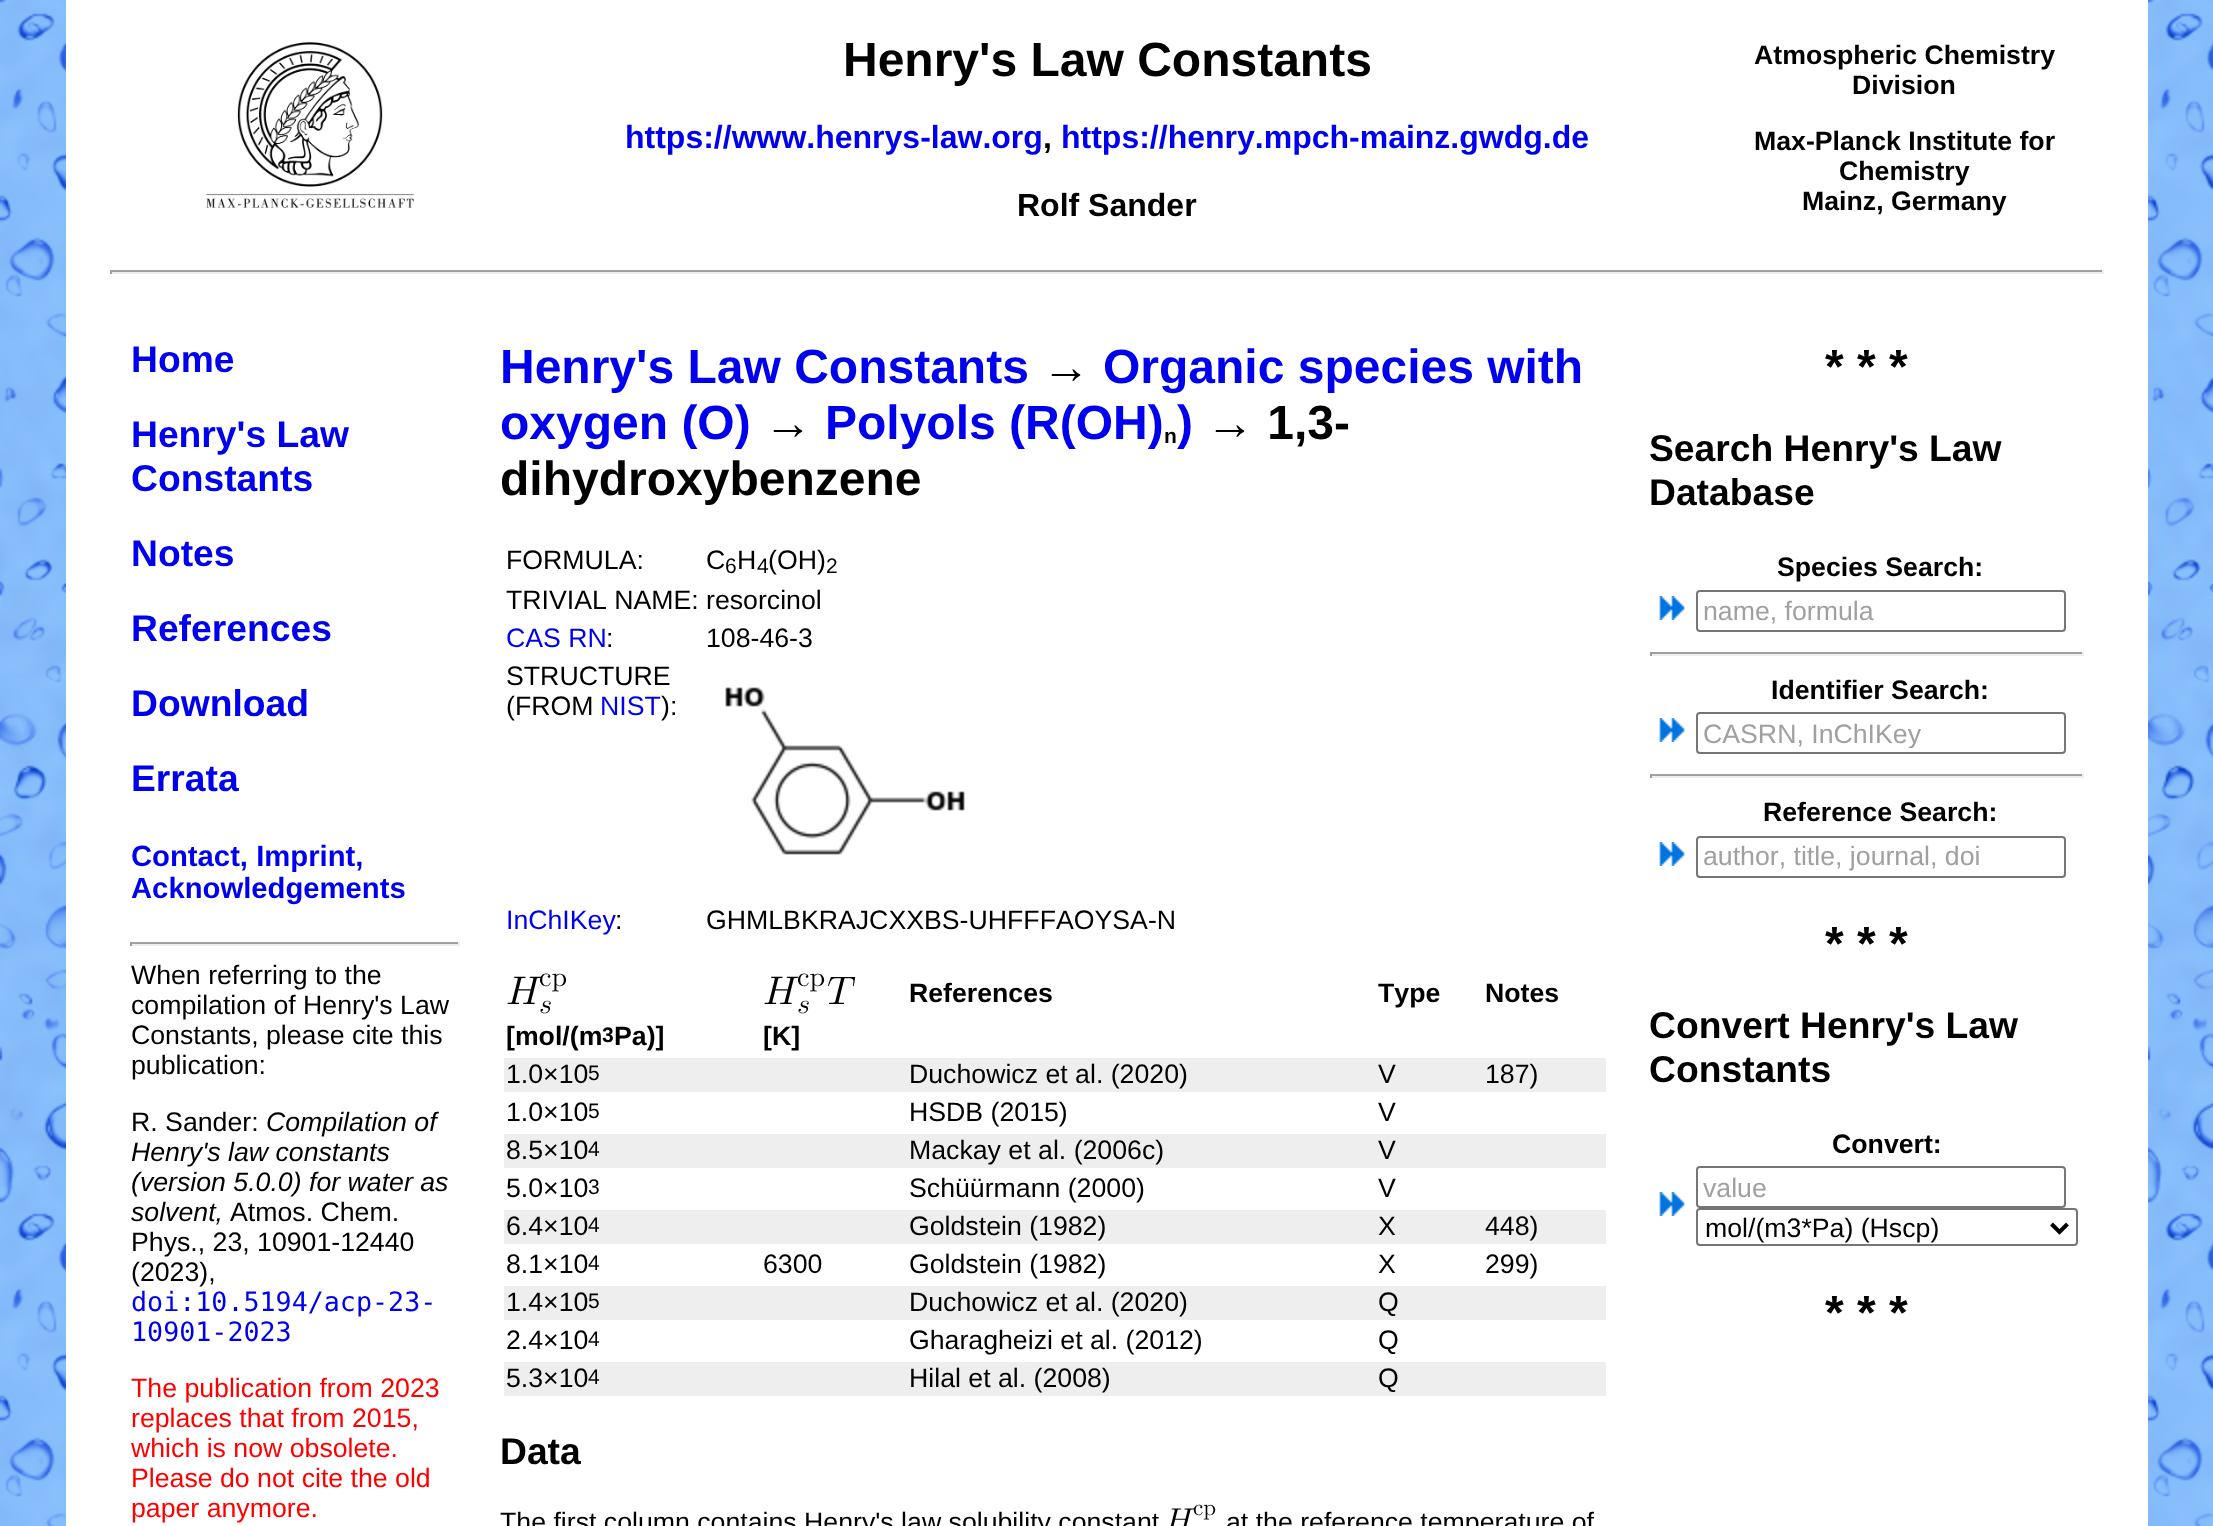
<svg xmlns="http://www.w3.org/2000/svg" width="2213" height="1526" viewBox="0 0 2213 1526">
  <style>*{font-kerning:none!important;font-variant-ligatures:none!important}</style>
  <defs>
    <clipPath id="clip1"><path d="M1704 718h354v30H1704z"/></clipPath>
  </defs>
  <rect width="100%" height="100%" fill="#fff"/>
  <image x="0" y="0" width="66" height="1526" href="img/1.png"/>
  <image x="206" y="42" width="208" height="166" href="img/2.png"/>
  <path d="M110 270h1994v2H110z" fill="#9f9f9f"/>
  <path d="M2102 270h2v4H2102z" fill="#eee"/>
  <path d="M110 272h1994v2H110z" fill="#eee"/>
  <path d="M110 270h2v4H110z" fill="#9f9f9f"/>
  <path d="M130 942h330v2H130z" fill="#9f9f9f"/>
  <path d="M458 942h2v4H458z" fill="#eee"/>
  <path d="M130 944h330v2H130z" fill="#eee"/>
  <path d="M130 942h2v4H130z" fill="#9f9f9f"/>
  <image x="725" y="687" width="240" height="168" href="img/3.png"/>
  <path d="M504 1058h1102v34H504z" fill="#eee"/>
  <path d="M504 1134h1102v34H504z" fill="#eee"/>
  <path d="M504 1210h1102v34H504z" fill="#eee"/>
  <path d="M504 1286h1102v34H504z" fill="#eee"/>
  <path d="M504 1362h1102v34H504z" fill="#eee"/>
  <image x="1659" y="596" width="26" height="24" href="img/4.png"/>
  <rect x="1697" y="591" width="368" height="40" rx="3" fill="none" stroke="#767676" stroke-width="2"/>
  <path d="M1650 652h434v2H1650z" fill="#9f9f9f"/>
  <path d="M2082 652h2v4H2082z" fill="#eee"/>
  <path d="M1650 654h434v2H1650z" fill="#eee"/>
  <path d="M1650 652h2v4H1650z" fill="#9f9f9f"/>
  <image x="1659" y="718" width="26" height="24" href="img/4.png"/>
  <rect x="1697" y="713" width="368" height="40" rx="3" fill="none" stroke="#767676" stroke-width="2"/>
  <path d="M1650 774h434v2H1650z" fill="#9f9f9f"/>
  <path d="M2082 774h2v4H2082z" fill="#eee"/>
  <path d="M1650 776h434v2H1650z" fill="#eee"/>
  <path d="M1650 774h2v4H1650z" fill="#9f9f9f"/>
  <image x="1659" y="842" width="26" height="24" href="img/4.png"/>
  <rect x="1697" y="837" width="368" height="40" rx="3" fill="none" stroke="#767676" stroke-width="2"/>
  <image x="1659" y="1192" width="26" height="24" href="img/4.png"/>
  <rect x="1697" y="1167" width="368" height="40" rx="3" fill="none" stroke="#767676" stroke-width="2"/>
  <rect x="1697" y="1209" width="380" height="36" rx="3" fill="none" stroke="#767676" stroke-width="2"/>
  <path d="M2051.5 1224L2059.5 1232L2067.5 1224" fill="none" stroke="#000" stroke-width="4"/>
  <image x="2148" y="0" width="65" height="1526" href="img/5.png"/>
  <text x="843" y="76" font-family="Liberation Sans" font-size="48" font-weight="bold" fill="#000">Henry's Law Constants</text>
  <text x="625" y="148" font-family="Liberation Sans" font-size="32" font-weight="bold" fill="#00e">https://www.henrys-law.org</text>
  <text x="1043" y="148" font-family="Liberation Sans" font-size="32" font-weight="bold" fill="#000">,</text>
  <text x="1061" y="148" font-family="Liberation Sans" font-size="32" font-weight="bold" fill="#00e">https://henry.mpch-mainz.gwdg.de</text>
  <text x="1017" y="216" font-family="Liberation Sans" font-size="32" font-weight="bold" fill="#000">Rolf Sander</text>
  <g font-family="Liberation Sans" font-size="26.7" font-weight="bold" fill="#000">
    <text x="1754" y="64">Atmospheric Chemistry</text>
    <text x="1852" y="94">Division</text>
    <text x="1754" y="150">Max-Planck Institute for</text>
    <text x="1839" y="180">Chemistry</text>
    <text x="1802" y="210">Mainz, Germany</text>
  </g>
  <g font-family="Liberation Sans" font-size="37.25" font-weight="bold" fill="#00e">
    <text x="131" y="372">Home</text>
    <text x="131" y="447">Henry's Law</text>
    <text x="131" y="491">Constants</text>
    <text x="131" y="566">Notes</text>
    <text x="131" y="641">References</text>
    <text x="131" y="716">Download</text>
    <text x="131" y="791">Errata</text>
  </g>
  <g font-family="Liberation Sans" font-size="29.25" font-weight="bold" fill="#00e">
    <text x="131" y="866">Contact, Imprint,</text>
    <text x="131" y="898">Acknowledgements</text>
  </g>
  <g font-family="Liberation Sans" font-size="26.7" fill="#000">
    <text x="131" y="984">When referring to the</text>
    <text x="131" y="1014">compilation of Henry's Law</text>
    <text x="131" y="1044">Constants, please cite this</text>
    <text x="131" y="1074">publication:</text>
    <text x="131" y="1131">R. Sander:</text>
  </g>
  <g font-family="Liberation Sans" font-size="26.7" font-style="italic" fill="#000">
    <text x="266" y="1131">Compilation of</text>
    <text x="131" y="1161">Henry's law constants</text>
    <text x="131" y="1191">(version 5.0.0) for water as</text>
    <text x="131" y="1221">solvent,</text>
  </g>
  <g font-family="Liberation Sans" font-size="26.7" fill="#000">
    <text x="230" y="1221">Atmos. Chem.</text>
    <text x="131" y="1251">Phys., 23, 10901-12440</text>
    <text x="131" y="1281">(2023),</text>
  </g>
  <g font-family="DejaVu Sans Mono" font-size="26.7" fill="#00e">
    <text x="131" y="1311">doi:10.5194/acp-23-</text>
    <text x="131" y="1341">10901-2023</text>
  </g>
  <g font-family="Liberation Sans" font-size="26.7" fill="#f00">
    <text x="131" y="1397">The publication from 2023</text>
    <text x="131" y="1427">replaces that from 2015,</text>
    <text x="131" y="1457">which is now obsolete.</text>
    <text x="131" y="1487">Please do not cite the old</text>
    <text x="131" y="1517">paper anymore.</text>
  </g>
  <text x="500" y="383" font-family="Liberation Sans" font-size="48" font-weight="bold" fill="#00e">Henry's Law Constants</text>
  <text x="1042" y="383" font-family="Liberation Sans" font-size="48" font-weight="bold" fill="#000">→</text>
  <g font-family="Liberation Sans" font-size="48" font-weight="bold" fill="#00e">
    <text x="1103" y="383">Organic species with</text>
    <text x="500" y="439">oxygen (O)</text>
  </g>
  <text x="764" y="439" font-family="Liberation Sans" font-size="48" font-weight="bold" fill="#000">→</text>
  <text x="825" y="439" font-family="Liberation Sans" font-size="48" font-weight="bold" fill="#00e">Polyols (R(OH) )</text>
  <text x="1206" y="439" font-family="Liberation Sans" font-size="48" font-weight="bold" fill="#000">→ 1,3-</text>
  <text x="1164" y="443" font-family="Liberation Sans" font-size="21" font-weight="bold" fill="#000">n</text>
  <text x="500" y="495" font-family="Liberation Sans" font-size="48" font-weight="bold" fill="#000">dihydroxybenzene</text>
  <g font-family="Liberation Sans" font-size="26.7" fill="#000">
    <text x="506" y="569">FORMULA:</text>
    <text x="706" y="569">C</text>
  </g>
  <text x="725" y="573" font-family="Liberation Sans" font-size="21" fill="#000">6</text>
  <text x="737" y="569" font-family="Liberation Sans" font-size="26.7" fill="#000">H</text>
  <text x="757" y="573" font-family="Liberation Sans" font-size="21" fill="#000">4</text>
  <text x="768" y="569" font-family="Liberation Sans" font-size="26.7" fill="#000">(OH)</text>
  <text x="826" y="573" font-family="Liberation Sans" font-size="21" fill="#000">2</text>
  <g font-family="Liberation Sans" font-size="26.7" fill="#000">
    <text x="506" y="609">TRIVIAL NAME:</text>
    <text x="706" y="609">resorcinol</text>
  </g>
  <text x="506" y="647" font-family="Liberation Sans" font-size="26.7" fill="#00e">CAS RN</text>
  <g font-family="Liberation Sans" font-size="26.7" fill="#000">
    <text x="606" y="647">:</text>
    <text x="706" y="647">108-46-3</text>
    <text x="506" y="685">STRUCTURE</text>
    <text x="506" y="715">(FROM</text>
  </g>
  <text x="600" y="715" font-family="Liberation Sans" font-size="26.7" fill="#00e">NIST</text>
  <text x="661" y="715" font-family="Liberation Sans" font-size="26.7" fill="#000">):</text>
  <text x="506" y="929" font-family="Liberation Sans" font-size="26.7" fill="#00e">InChIKey</text>
  <g font-family="Liberation Sans" font-size="26.7" fill="#000">
    <text x="615" y="929">:</text>
    <text x="706" y="929">GHMLBKRAJCXXBS-UHFFFAOYSA-N</text>
  </g>
  <text x="506" y="1004" font-family="Latin Modern Math" font-size="40" fill="#000">𝐻</text>
  <g font-family="Latin Modern Math" font-size="28" fill="#000">
    <text x="539" y="986">cp</text>
    <text x="539" y="1013">𝑠</text>
  </g>
  <text x="763" y="1004" font-family="Latin Modern Math" font-size="40" fill="#000">𝐻</text>
  <g font-family="Latin Modern Math" font-size="28" fill="#000">
    <text x="797" y="986">cp</text>
    <text x="797" y="1013">𝑠</text>
  </g>
  <text x="827" y="1004" font-family="Latin Modern Math" font-size="40" fill="#000">𝑇</text>
  <g font-family="Liberation Sans" font-size="26.7" font-weight="bold" fill="#000">
    <text x="909" y="1002">References</text>
    <text x="1378" y="1002">Type</text>
    <text x="1485" y="1002">Notes</text>
    <text x="506" y="1045">[mol/(m</text>
  </g>
  <text x="602" y="1042" font-family="Liberation Sans" font-size="21" font-weight="bold" fill="#000">3</text>
  <g font-family="Liberation Sans" font-size="26.7" font-weight="bold" fill="#000">
    <text x="614" y="1045">Pa)]</text>
    <text x="763" y="1045">[K]</text>
  </g>
  <text x="506" y="1083" font-family="Liberation Sans" font-size="26.7" fill="#000">1.0×10</text>
  <text x="588" y="1080" font-family="Liberation Sans" font-size="21" fill="#000">5</text>
  <g font-family="Liberation Sans" font-size="26.7" fill="#000">
    <text x="909" y="1083">Duchowicz et al. (2020)</text>
    <text x="1378" y="1083">V</text>
    <text x="1485" y="1083">187)</text>
    <text x="506" y="1121">1.0×10</text>
  </g>
  <text x="588" y="1118" font-family="Liberation Sans" font-size="21" fill="#000">5</text>
  <g font-family="Liberation Sans" font-size="26.7" fill="#000">
    <text x="909" y="1121">HSDB (2015)</text>
    <text x="1378" y="1121">V</text>
    <text x="506" y="1159">8.5×10</text>
  </g>
  <text x="588" y="1156" font-family="Liberation Sans" font-size="21" fill="#000">4</text>
  <g font-family="Liberation Sans" font-size="26.7" fill="#000">
    <text x="909" y="1159">Mackay et al. (2006c)</text>
    <text x="1378" y="1159">V</text>
    <text x="506" y="1197">5.0×10</text>
  </g>
  <text x="588" y="1194" font-family="Liberation Sans" font-size="21" fill="#000">3</text>
  <g font-family="Liberation Sans" font-size="26.7" fill="#000">
    <text x="909" y="1197">Schüürmann (2000)</text>
    <text x="1378" y="1197">V</text>
    <text x="506" y="1235">6.4×10</text>
  </g>
  <text x="588" y="1232" font-family="Liberation Sans" font-size="21" fill="#000">4</text>
  <g font-family="Liberation Sans" font-size="26.7" fill="#000">
    <text x="909" y="1235">Goldstein (1982)</text>
    <text x="1378" y="1235">X</text>
    <text x="1485" y="1235">448)</text>
    <text x="506" y="1273">8.1×10</text>
  </g>
  <text x="588" y="1270" font-family="Liberation Sans" font-size="21" fill="#000">4</text>
  <g font-family="Liberation Sans" font-size="26.7" fill="#000">
    <text x="763" y="1273">6300</text>
    <text x="909" y="1273">Goldstein (1982)</text>
    <text x="1378" y="1273">X</text>
    <text x="1485" y="1273">299)</text>
    <text x="506" y="1311">1.4×10</text>
  </g>
  <text x="588" y="1308" font-family="Liberation Sans" font-size="21" fill="#000">5</text>
  <g font-family="Liberation Sans" font-size="26.7" fill="#000">
    <text x="909" y="1311">Duchowicz et al. (2020)</text>
    <text x="1378" y="1311">Q</text>
    <text x="506" y="1349">2.4×10</text>
  </g>
  <text x="588" y="1346" font-family="Liberation Sans" font-size="21" fill="#000">4</text>
  <g font-family="Liberation Sans" font-size="26.7" fill="#000">
    <text x="909" y="1349">Gharagheizi et al. (2012)</text>
    <text x="1378" y="1349">Q</text>
    <text x="506" y="1387">5.3×10</text>
  </g>
  <text x="588" y="1384" font-family="Liberation Sans" font-size="21" fill="#000">4</text>
  <g font-family="Liberation Sans" font-size="26.7" fill="#000">
    <text x="909" y="1387">Hilal et al. (2008)</text>
    <text x="1378" y="1387">Q</text>
  </g>
  <text x="500" y="1464" font-family="Liberation Sans" font-size="37.25" font-weight="bold" fill="#000">Data</text>
  <text x="500" y="1531" font-family="Liberation Sans" font-size="26.7" fill="#000">The first column contains Henry's law solubility constant</text>
  <text x="1165" y="1531" font-family="Latin Modern Math" font-size="33" fill="#000">𝐻</text>
  <text x="1193" y="1515" font-family="Latin Modern Math" font-size="23" fill="#000">cp</text>
  <text x="1226" y="1531" font-family="Liberation Sans" font-size="26.7" fill="#000">at the reference temperature of</text>
  <text x="1825" y="383" font-family="Liberation Sans" font-size="48" font-weight="bold" fill="#000">* * *</text>
  <g font-family="Liberation Sans" font-size="37.25" font-weight="bold" fill="#000">
    <text x="1649" y="461">Search Henry's Law</text>
    <text x="1649" y="505">Database</text>
  </g>
  <text x="1777" y="576" font-family="Liberation Sans" font-size="26.7" font-weight="bold" fill="#000">Species Search:</text>
  <text x="1703" y="620" font-family="Liberation Sans" font-size="26.7" fill="#a0a0a0">name, formula</text>
  <text x="1771" y="699" font-family="Liberation Sans" font-size="26.7" font-weight="bold" fill="#000">Identifier Search:</text>
  <g clip-path="url(#clip1)">
    <text x="1703" y="743" font-family="Liberation Sans" font-size="26.7" fill="#a0a0a0">CASRN, InChIKey</text>
  </g>
  <text x="1763" y="821" font-family="Liberation Sans" font-size="26.7" font-weight="bold" fill="#000">Reference Search:</text>
  <text x="1703" y="865" font-family="Liberation Sans" font-size="26.7" fill="#a0a0a0">author, title, journal, doi</text>
  <text x="1825" y="960" font-family="Liberation Sans" font-size="48" font-weight="bold" fill="#000">* * *</text>
  <g font-family="Liberation Sans" font-size="37.25" font-weight="bold" fill="#000">
    <text x="1649" y="1038">Convert Henry's Law</text>
    <text x="1649" y="1082">Constants</text>
  </g>
  <text x="1832" y="1153" font-family="Liberation Sans" font-size="26.7" font-weight="bold" fill="#000">Convert:</text>
  <text x="1703" y="1197" font-family="Liberation Sans" font-size="26.7" fill="#a0a0a0">value</text>
  <text x="1705" y="1237" font-family="Liberation Sans" font-size="26.7" fill="#000">mol/(m3*Pa) (Hscp)</text>
  <text x="1825" y="1329" font-family="Liberation Sans" font-size="48" font-weight="bold" fill="#000">* * *</text>
</svg>
